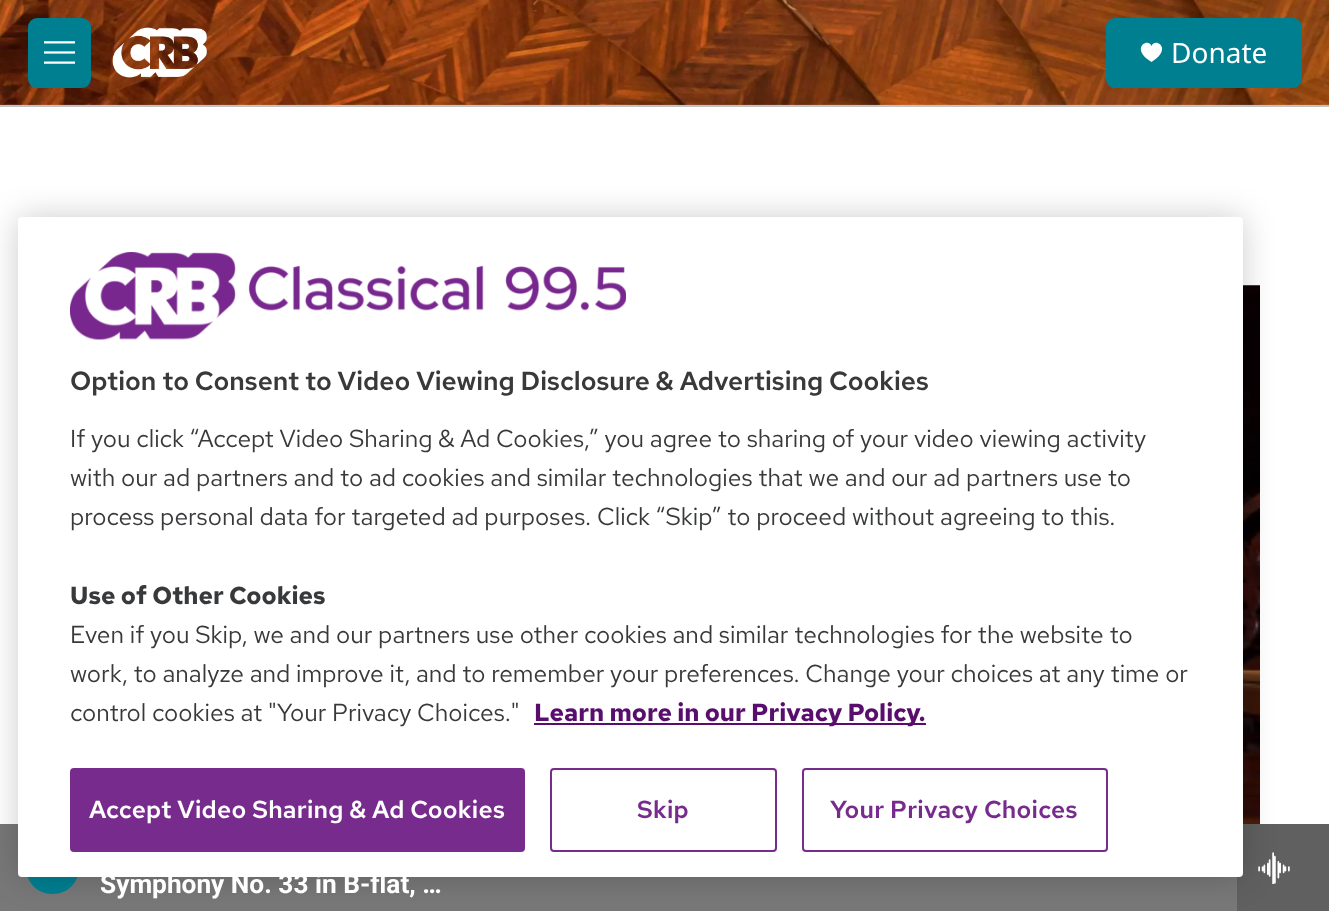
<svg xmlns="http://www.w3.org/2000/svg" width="1329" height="911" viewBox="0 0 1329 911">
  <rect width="100%" height="100%" fill="#fff"/>
  <path d="M0 105h1329v2H0z" fill="#c2c2c2"/>
  <image x="0" y="0" width="1329" height="105" href="img/1.png"/>
  <rect x="28" y="18" width="63" height="70" rx="9" fill="#007f91"/>
  <image x="44" y="41" width="31" height="23" href="img/2.png"/>
  <image x="112" y="27" width="95" height="51" href="img/3.png"/>
  <rect x="1106" y="18" width="196" height="70" rx="9" fill="#007f91"/>
  <path d="M1151.5 46C1148 37 1129.5 48.5 1151.5 62C1173.5 48.5 1155 37 1151.5 46Z" fill="#fff"/>
  <path d="M0 824h1237v87H0z" fill="#787878"/>
  <rect x="26" y="842" width="53" height="52" rx="26" fill="#007f91"/>
  <path d="M1237 824h92v87H1237z" fill="#606060"/>
  <image x="1258" y="852" width="32" height="32" href="img/4.png"/>
  <image x="1243" y="285" width="17" height="539" href="img/6.png"/>
  <rect x="18" y="217" width="1225" height="660" rx="4" fill="#00000033" filter="blur(16px)"/>
  <rect x="18" y="217" width="1225" height="660" rx="4" fill="#fff"/>
  <image x="70" y="252" width="556" height="88" href="img/5.png"/>
  <path d="M534 723h392v2H534z" fill="#590e6e"/>
  <rect x="71" y="769" width="453" height="82" rx="3" fill="#772b8d" stroke="#772b8d" stroke-width="2"/>
  <rect x="551" y="769" width="225" height="82" rx="3" fill="none" stroke="#772b8d" stroke-width="2"/>
  <rect x="803" y="769" width="304" height="82" rx="3" fill="none" stroke="#772b8d" stroke-width="2"/>
  <text x="1171" y="63" font-family="Noto Sans" font-size="28" fill="#fff">Donate</text>
  <text x="100" y="893" font-family="Roboto" font-size="26.25" font-weight="bold" fill="#fff">Symphony No. 33 in B-flat, …</text>
  <text x="70" y="390" font-family="Red Hat Text" font-size="26.25" font-weight="600" fill="#38393b">Option to Consent to Video Viewing Disclosure &amp; Advertising Cookies</text>
  <g font-family="Red Hat Text" font-size="24.5" fill="#38393b">
    <text x="70" y="447">If you click “Accept Video Sharing &amp; Ad Cookies,” you agree to sharing of your video viewing activity</text>
    <text x="70" y="486">with our ad partners and to ad cookies and similar technologies that we and our ad partners use to</text>
    <text x="70" y="525">process personal data for targeted ad purposes. Click “Skip” to proceed without agreeing to this.</text>
  </g>
  <text x="70" y="604" font-family="Red Hat Text" font-size="24.5" font-weight="bold" fill="#38393b">Use of Other Cookies</text>
  <g font-family="Red Hat Text" font-size="24.5" fill="#38393b">
    <text x="70" y="643">Even if you Skip, we and our partners use other cookies and similar technologies for the website to</text>
    <text x="70" y="682">work, to analyze and improve it, and to remember your preferences. Change your choices at any time or</text>
    <text x="70" y="721">control cookies at "Your Privacy Choices."</text>
  </g>
  <text x="534" y="721" font-family="Red Hat Text" font-size="24.5" font-weight="bold" fill="#590e6e">Learn more in our Privacy Policy.</text>
  <text x="89" y="818" font-family="Red Hat Text" font-size="24.5" font-weight="600" letter-spacing="0.25" fill="#fff">Accept Video Sharing &amp; Ad Cookies</text>
  <g font-family="Red Hat Text" font-size="24.5" font-weight="600" letter-spacing="0.25" fill="#772b8d">
    <text x="637" y="818">Skip</text>
    <text x="830" y="818">Your Privacy Choices</text>
  </g>
</svg>
